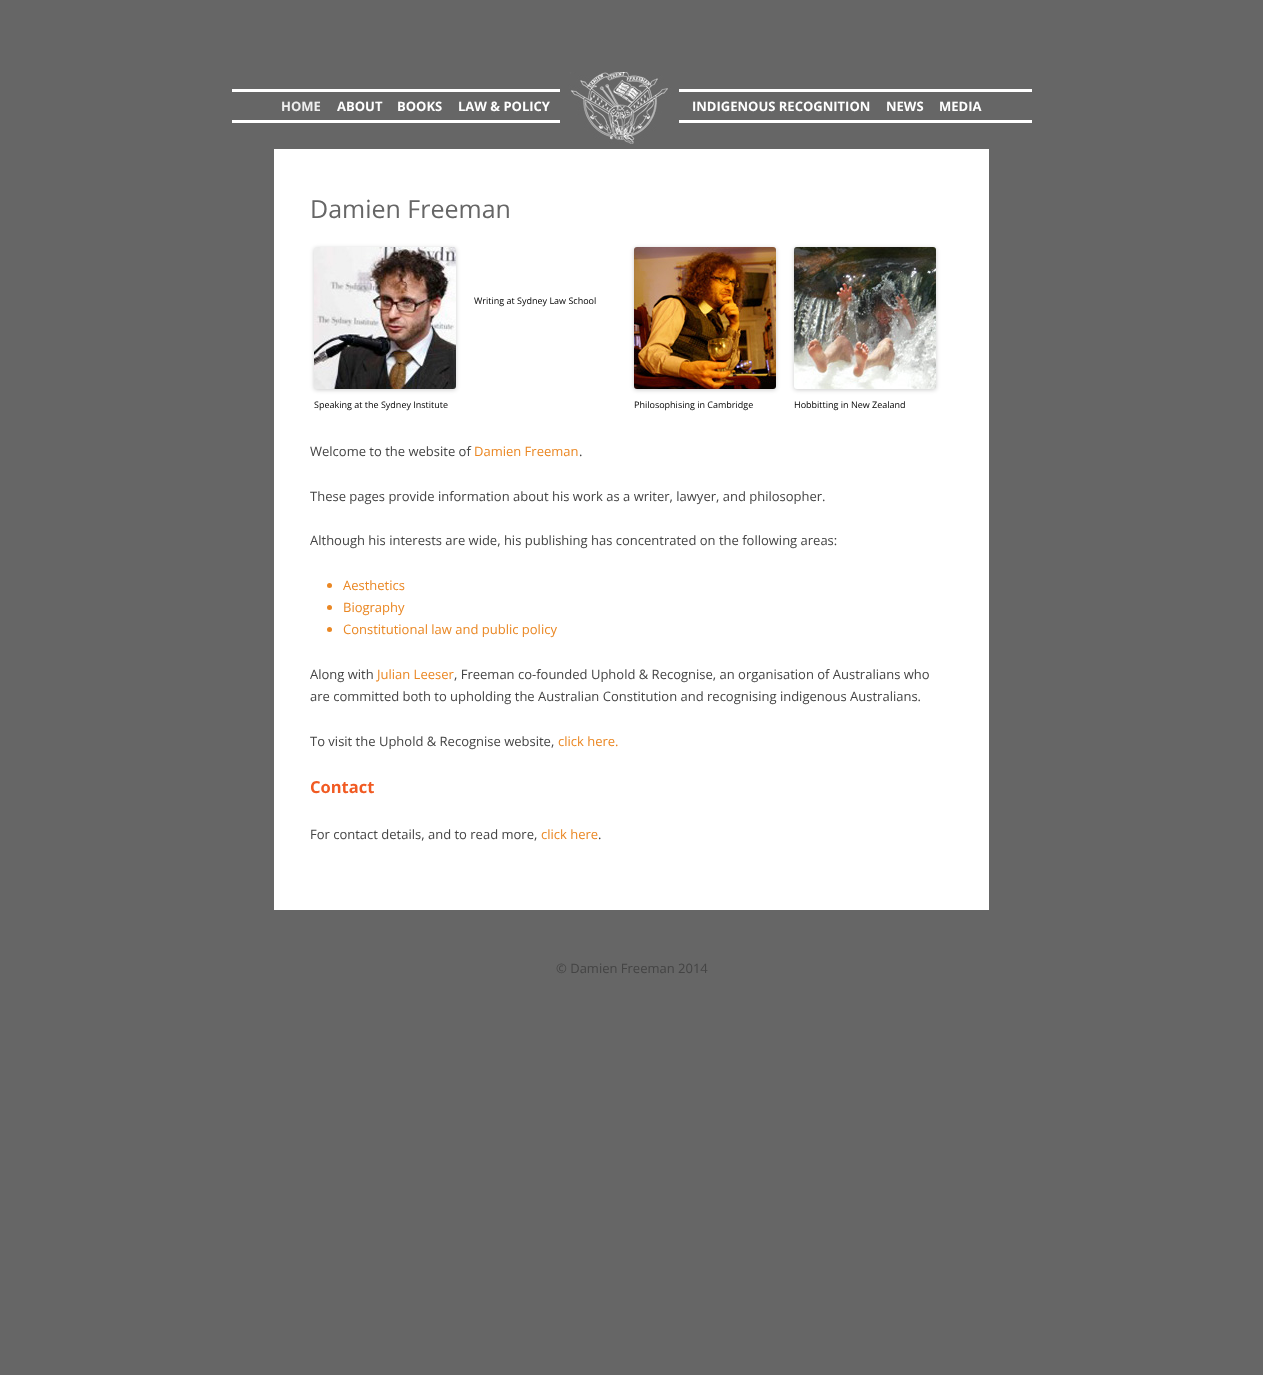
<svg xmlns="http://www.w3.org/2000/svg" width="1263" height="1375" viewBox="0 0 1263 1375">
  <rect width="100%" height="100%" fill="#666"/>
  <path d="M232 89h800v3H232z" fill="#fff"/>
  <path d="M232 120h800v3H232z" fill="#fff"/>
  <image x="560" y="72" width="119" height="72" href="img/1.png"/>
  <path d="M274 149h715v761H274z" fill="#fff"/>
  <rect x="314" y="248" width="142" height="142" rx="3" fill="#00000033" filter="blur(2px)"/>
  <image x="314" y="247" width="142" height="142" href="img/2.png"/>
  <rect x="634" y="248" width="142" height="142" rx="3" fill="#00000033" filter="blur(2px)"/>
  <image x="634" y="247" width="142" height="142" href="img/3.png"/>
  <rect x="794" y="248" width="142" height="142" rx="3" fill="#00000033" filter="blur(2px)"/>
  <image x="794" y="247" width="142" height="142" href="img/4.png"/>
  <circle cx="329.5" cy="585.5" r="2.5" fill="#ea8723"/>
  <circle cx="329.5" cy="607.5" r="2.5" fill="#ea8723"/>
  <circle cx="329.5" cy="629.5" r="2.5" fill="#ea8723"/>
  <text x="281" y="111" font-family="Open Sans" font-size="13" font-weight="bold" fill="#eee">HOME</text>
  <g font-family="Open Sans" font-size="13" font-weight="bold" fill="#fff">
    <text x="337" y="111">ABOUT</text>
    <text x="397" y="111">BOOKS</text>
    <text x="458" y="111">LAW &amp; POLICY</text>
    <text x="692" y="111">INDIGENOUS RECOGNITION</text>
    <text x="886" y="111">NEWS</text>
    <text x="939" y="111">MEDIA</text>
  </g>
  <text x="310" y="218" font-family="Open Sans" font-size="25" fill="#666">Damien Freeman</text>
  <g font-family="Open Sans" font-size="9" fill="#000">
    <text x="474" y="304">Writing at Sydney Law School</text>
    <text x="314" y="408">Speaking at the Sydney Institute</text>
    <text x="634" y="408">Philosophising in Cambridge</text>
    <text x="794" y="408">Hobbitting in New Zealand</text>
  </g>
  <text x="310" y="456" font-family="Open Sans" font-size="13" fill="#444">Welcome to the website of</text>
  <text x="474" y="456" font-family="Open Sans" font-size="13" fill="#ea8723">Damien Freeman</text>
  <g font-family="Open Sans" font-size="13" fill="#444">
    <text x="579" y="456">.</text>
    <text x="310" y="501">These pages provide information about his work as a writer, lawyer, and philosopher.</text>
    <text x="310" y="545">Although his interests are wide, his publishing has concentrated on the following areas:</text>
  </g>
  <g font-family="Open Sans" font-size="13" fill="#ea8723">
    <text x="343" y="590">Aesthetics</text>
    <text x="343" y="612">Biography</text>
    <text x="343" y="634">Constitutional law and public policy</text>
  </g>
  <text x="310" y="679" font-family="Open Sans" font-size="13" fill="#444">Along with</text>
  <text x="377" y="679" font-family="Open Sans" font-size="13" fill="#ea8723">Julian Leeser</text>
  <g font-family="Open Sans" font-size="13" fill="#444">
    <text x="454" y="679">, Freeman co-founded Uphold &amp; Recognise, an organisation of Australians who</text>
    <text x="310" y="701">are committed both to upholding the Australian Constitution and recognising indigenous Australians.</text>
    <text x="310" y="746">To visit the Uphold &amp; Recognise website,</text>
  </g>
  <text x="558" y="746" font-family="Open Sans" font-size="13" fill="#ea8723">click here.</text>
  <text x="310" y="793" font-family="Open Sans" font-size="16.5" font-weight="bold" fill="#f15a22">Contact</text>
  <text x="310" y="839" font-family="Open Sans" font-size="13" fill="#444">For contact details, and to read more,</text>
  <text x="541" y="839" font-family="Open Sans" font-size="13" fill="#ea8723">click here</text>
  <g font-family="Open Sans" font-size="13" fill="#444">
    <text x="598" y="839">.</text>
    <text x="556" y="973">© Damien Freeman 2014</text>
  </g>
</svg>
